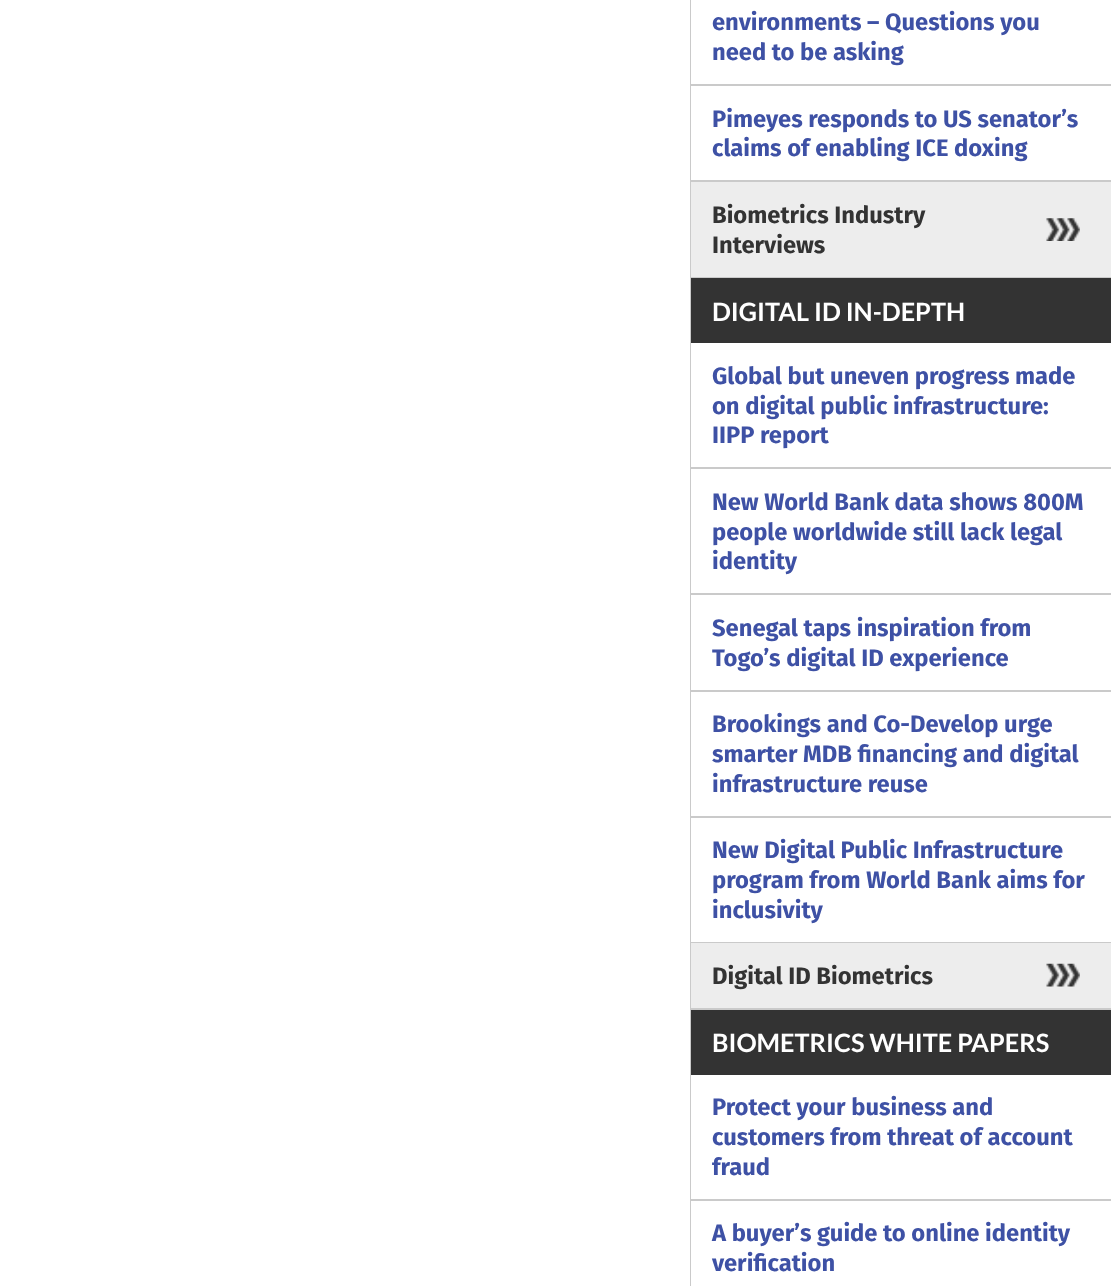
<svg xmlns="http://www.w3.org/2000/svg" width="1111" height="1286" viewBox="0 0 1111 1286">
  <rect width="100%" height="100%" fill="#fff"/>
  <path d="M690 0h1v1286H690z" fill="#cacaca"/>
  <path d="M691 84h420v2H691z" fill="#cacaca"/>
  <path d="M691 180h420v2H691z" fill="#cacaca"/>
  <path d="M691 277h420v1H691z" fill="#cacaca"/>
  <path d="M691 182h420v95H691z" fill="#ededed"/>
  <image x="1046" y="218" width="34" height="23" href="img/1.png"/>
  <path d="M691 278h420v65H691z" fill="#333"/>
  <path d="M691 467h420v2H691z" fill="#cacaca"/>
  <path d="M691 593h420v2H691z" fill="#cacaca"/>
  <path d="M691 690h420v2H691z" fill="#cacaca"/>
  <path d="M691 816h420v2H691z" fill="#cacaca"/>
  <path d="M691 942h420v1H691z" fill="#cacaca"/>
  <path d="M691 1008h420v2H691z" fill="#cacaca"/>
  <path d="M691 943h420v65H691z" fill="#ededed"/>
  <image x="1046" y="963" width="34" height="24" href="img/2.png"/>
  <path d="M691 1010h420v65H691z" fill="#333"/>
  <path d="M691 1199h420v2H691z" fill="#cacaca"/>
  <g font-family="Fira Sans" font-size="23.75" font-weight="bold" fill="#3e51a5">
    <text x="712" y="30">environments – Questions you</text>
    <text x="712" y="60">need to be asking</text>
    <text x="712" y="127">Pimeyes responds to US senator’s</text>
    <text x="712" y="156">claims of enabling ICE doxing</text>
  </g>
  <g font-family="Fira Sans" font-size="23.75" font-weight="bold" fill="#333">
    <text x="712" y="223">Biometrics Industry</text>
    <text x="712" y="253">Interviews</text>
  </g>
  <text x="712" y="321" font-family="Lato" font-size="25.25" font-weight="bold" fill="#fff">DIGITAL ID IN-DEPTH</text>
  <g font-family="Fira Sans" font-size="23.75" font-weight="bold" fill="#3e51a5">
    <text x="712" y="384">Global but uneven progress made</text>
    <text x="712" y="414">on digital public infrastructure:</text>
    <text x="712" y="443">IIPP report</text>
    <text x="712" y="510">New World Bank data shows 800M</text>
    <text x="712" y="540">people worldwide still lack legal</text>
    <text x="712" y="569">identity</text>
    <text x="712" y="636">Senegal taps inspiration from</text>
    <text x="712" y="666">Togo’s digital ID experience</text>
    <text x="712" y="732">Brookings and Co-Develop urge</text>
    <text x="712" y="762">smarter MDB financing and digital</text>
    <text x="712" y="792">infrastructure reuse</text>
    <text x="712" y="858">New Digital Public Infrastructure</text>
    <text x="712" y="888">program from World Bank aims for</text>
    <text x="712" y="918">inclusivity</text>
  </g>
  <text x="712" y="984" font-family="Fira Sans" font-size="23.75" font-weight="bold" fill="#333">Digital ID Biometrics</text>
  <text x="712" y="1052" font-family="Lato" font-size="25.25" font-weight="bold" fill="#fff">BIOMETRICS WHITE PAPERS</text>
  <g font-family="Fira Sans" font-size="23.75" font-weight="bold" fill="#3e51a5">
    <text x="712" y="1115">Protect your business and</text>
    <text x="712" y="1145">customers from threat of account</text>
    <text x="712" y="1175">fraud</text>
    <text x="712" y="1241">A buyer’s guide to online identity</text>
    <text x="712" y="1271">verification</text>
  </g>
</svg>
